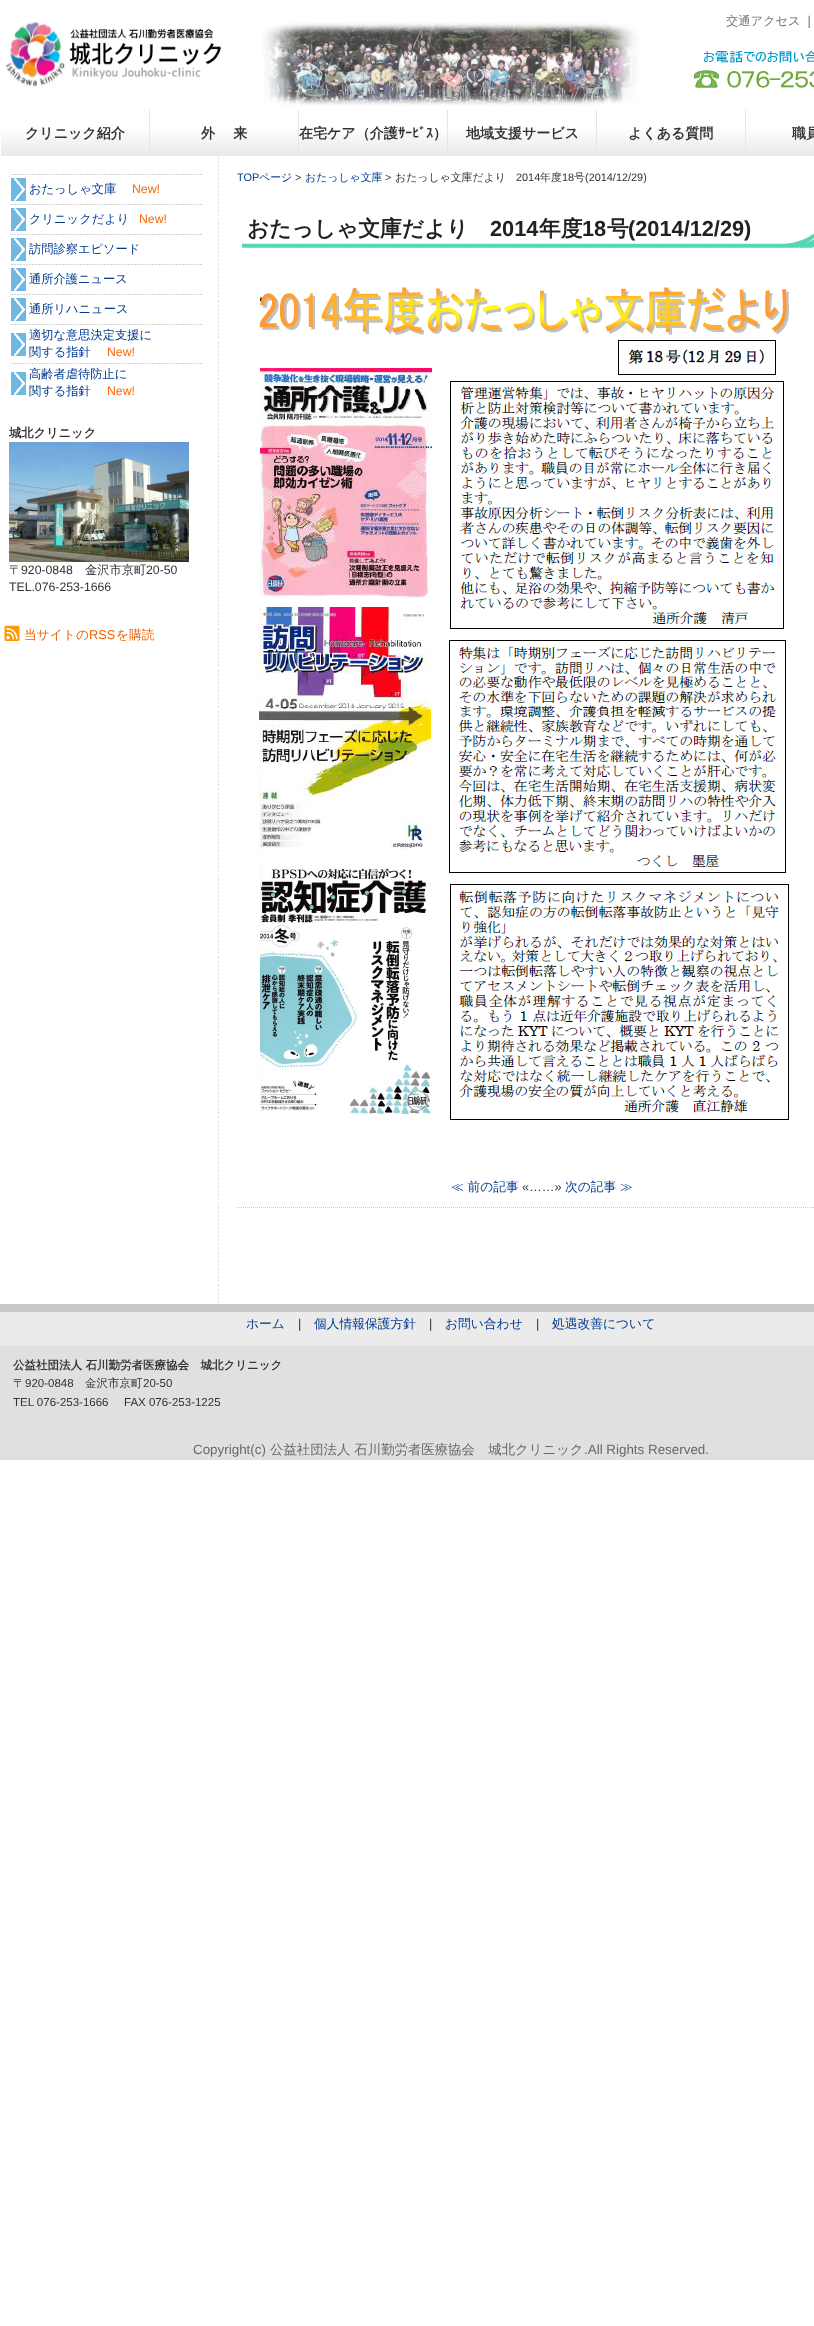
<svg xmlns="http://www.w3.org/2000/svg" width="814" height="2326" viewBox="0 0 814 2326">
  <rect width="100%" height="100%" fill="#fff"/>
  <image x="0" y="157" width="814" height="1147" href="img/1.png"/>
  <image x="263" y="22" width="376" height="84" href="img/2.png"/>
  <image x="5" y="21" width="217" height="66" href="img/3.png"/>
  <image x="693" y="51" width="121" height="37" href="img/4.png"/>
  <image x="1" y="110" width="813" height="46" href="img/5.png"/>
  <path d="M149 110h1v46H149z" fill="#e6e6e6"/>
  <path d="M298 110h1v46H298z" fill="#e6e6e6"/>
  <path d="M447 110h1v46H447z" fill="#e6e6e6"/>
  <path d="M596 110h1v46H596z" fill="#e6e6e6"/>
  <path d="M745 110h1v46H745z" fill="#e6e6e6"/>
  <image x="11" y="174" width="191" height="1" href="img/6.png"/>
  <image x="11" y="178" width="15" height="23" href="img/7.png"/>
  <image x="11" y="204" width="191" height="1" href="img/6.png"/>
  <image x="11" y="208" width="15" height="23" href="img/7.png"/>
  <image x="11" y="234" width="191" height="1" href="img/6.png"/>
  <image x="11" y="238" width="15" height="23" href="img/7.png"/>
  <image x="11" y="264" width="191" height="1" href="img/6.png"/>
  <image x="11" y="268" width="15" height="23" href="img/7.png"/>
  <image x="11" y="294" width="191" height="1" href="img/6.png"/>
  <image x="11" y="298" width="15" height="23" href="img/7.png"/>
  <image x="11" y="324" width="191" height="1" href="img/6.png"/>
  <image x="11" y="333" width="15" height="23" href="img/7.png"/>
  <image x="11" y="363" width="191" height="1" href="img/6.png"/>
  <image x="11" y="372" width="15" height="23" href="img/7.png"/>
  <image x="9" y="442" width="180" height="120" href="img/8.png"/>
  <image x="4" y="625" width="16" height="16" href="img/9.png"/>
  <image x="242" y="233" width="572" height="15" href="img/10.png"/>
  <image x="259" y="287" width="530" height="833" href="img/11.png"/>
  <path d="M237 1207.5H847" fill="none" stroke="#ccc" stroke-dasharray="1 1"/>
  <path d="M0 1346h814v114H0z" fill="#e0e0e0"/>
  <path d="M0 1312h814v34H0z" fill="#ebebeb"/>
  <path d="M0 1304h814v8H0z" fill="#c9c9c9"/>
  <text x="726" y="25" font-family="WenQuanYi Zen Hei" font-size="12.25" font-weight="500" fill="#737373">交通アクセス</text>
  <text x="803" y="25" font-family="WenQuanYi Zen Hei" font-size="12.25" font-weight="500" fill="#333">｜</text>
  <g font-family="WenQuanYi Zen Hei" font-size="14" font-weight="bold" fill="#333">
    <text x="25" y="138">クリニック紹介</text>
    <text x="201" y="138">外 　来</text>
    <text x="299" y="138">在宅ケア（介護</text>
  </g>
  <text x="398" y="138" font-family="IPAGothic" font-size="14" font-weight="bold" fill="#333">ｻｰﾋﾞｽ</text>
  <g font-family="WenQuanYi Zen Hei" font-size="14" font-weight="bold" fill="#333">
    <text x="433" y="138">）</text>
    <text x="466" y="138">地域支援サービス</text>
    <text x="628" y="138">よくある質問</text>
    <text x="792" y="138">職員</text>
  </g>
  <text x="29" y="193" font-family="WenQuanYi Zen Hei" font-size="12.25" font-weight="500" fill="#003a91">おたっしゃ文庫</text>
  <text x="132" y="193" font-family="Liberation Sans" font-size="12.25" fill="#f60">New!</text>
  <text x="29" y="223" font-family="WenQuanYi Zen Hei" font-size="12.25" font-weight="500" fill="#003a91">クリニックだより</text>
  <text x="139" y="223" font-family="Liberation Sans" font-size="12.25" fill="#f60">New!</text>
  <g font-family="WenQuanYi Zen Hei" font-size="12.25" font-weight="500" fill="#003a91">
    <text x="29" y="253">訪問診察エピソード</text>
    <text x="29" y="283">通所介護ニュース</text>
    <text x="29" y="313">通所リハニュース</text>
    <text x="29" y="339">適切な意思決定支援に</text>
    <text x="29" y="356">関する指針</text>
  </g>
  <text x="107" y="356" font-family="Liberation Sans" font-size="12.25" fill="#f60">New!</text>
  <g font-family="WenQuanYi Zen Hei" font-size="12.25" font-weight="500" fill="#003a91">
    <text x="29" y="378">高齢者虐待防止に</text>
    <text x="29" y="395">関する指針</text>
  </g>
  <text x="107" y="395" font-family="Liberation Sans" font-size="12.25" fill="#f60">New!</text>
  <text x="9" y="437" font-family="WenQuanYi Zen Hei" font-size="12.25" font-weight="bold" fill="#333">城北クリニック</text>
  <text x="9" y="574" font-family="WenQuanYi Zen Hei" font-size="12.25" font-weight="500" fill="#333">〒</text>
  <text x="21" y="574" font-family="Liberation Sans" font-size="12.25" fill="#333">920-0848</text>
  <text x="85" y="574" font-family="WenQuanYi Zen Hei" font-size="12.25" font-weight="500" fill="#333">金沢市京町</text>
  <g font-family="Liberation Sans" font-size="12.25" fill="#333">
    <text x="146" y="574">20-50</text>
    <text x="9" y="591">TEL.076-253-1666</text>
  </g>
  <text x="24" y="639" font-family="WenQuanYi Zen Hei" font-size="12.75" font-weight="500" fill="#eb6100">当サイトの</text>
  <text x="89" y="639" font-family="Liberation Sans" font-size="12.75" fill="#eb6100">RSS</text>
  <text x="116" y="639" font-family="WenQuanYi Zen Hei" font-size="12.75" font-weight="500" fill="#eb6100">を購読</text>
  <text x="237" y="181" font-family="Liberation Sans" font-size="10.9" fill="#003a91">TOP</text>
  <text x="259" y="181" font-family="WenQuanYi Zen Hei" font-size="10.9" font-weight="500" fill="#003a91">ページ</text>
  <text x="295" y="181" font-family="Liberation Sans" font-size="10.9" fill="#333">&gt;</text>
  <text x="305" y="181" font-family="WenQuanYi Zen Hei" font-size="10.9" font-weight="500" fill="#003a91">おたっしゃ文庫</text>
  <text x="385" y="181" font-family="Liberation Sans" font-size="10.9" fill="#333">&gt;</text>
  <text x="395" y="181" font-family="WenQuanYi Zen Hei" font-size="10.9" font-weight="500" fill="#333">おたっしゃ文庫だより</text>
  <text x="516" y="181" font-family="Liberation Sans" font-size="10.9" fill="#333">2014</text>
  <text x="540" y="181" font-family="WenQuanYi Zen Hei" font-size="10.9" font-weight="500" fill="#333">年度</text>
  <text x="562" y="181" font-family="Liberation Sans" font-size="10.9" fill="#333">18</text>
  <text x="574" y="181" font-family="WenQuanYi Zen Hei" font-size="10.9" font-weight="500" fill="#333">号</text>
  <text x="585" y="181" font-family="Liberation Sans" font-size="10.9" fill="#333">(2014/12/29)</text>
  <text x="247" y="236" font-family="WenQuanYi Zen Hei" font-size="21.75" font-weight="bold" fill="#212121">おたっしゃ文庫だより</text>
  <text x="490" y="236" font-family="Liberation Sans" font-size="21.75" font-weight="bold" fill="#212121">2014</text>
  <text x="539" y="236" font-family="WenQuanYi Zen Hei" font-size="21.75" font-weight="bold" fill="#212121">年度</text>
  <text x="582" y="236" font-family="Liberation Sans" font-size="21.75" font-weight="bold" fill="#212121">18</text>
  <text x="607" y="236" font-family="WenQuanYi Zen Hei" font-size="21.75" font-weight="bold" fill="#212121">号</text>
  <text x="628" y="236" font-family="Liberation Sans" font-size="21.75" font-weight="bold" fill="#212121">(2014/12/29)</text>
  <text x="451" y="1191" font-family="WenQuanYi Zen Hei" font-size="12.75" font-weight="500" fill="#003a91">≪ 前の記事</text>
  <text x="522" y="1191" font-family="Liberation Sans" font-size="12.75" fill="#333">«……»</text>
  <g font-family="WenQuanYi Zen Hei" font-size="12.75" font-weight="500" fill="#003a91">
    <text x="565" y="1191">次の記事 ≫</text>
    <text x="246" y="1328">ホーム</text>
  </g>
  <text x="298" y="1328" font-family="Liberation Sans" font-size="12.75" fill="#333">|</text>
  <text x="314" y="1328" font-family="WenQuanYi Zen Hei" font-size="12.75" font-weight="500" fill="#003a91">個人情報保護方針</text>
  <text x="429" y="1328" font-family="Liberation Sans" font-size="12.75" fill="#333">|</text>
  <text x="445" y="1328" font-family="WenQuanYi Zen Hei" font-size="12.75" font-weight="500" fill="#003a91">お問い合わせ</text>
  <text x="536" y="1328" font-family="Liberation Sans" font-size="12.75" fill="#333">|</text>
  <text x="552" y="1328" font-family="WenQuanYi Zen Hei" font-size="12.75" font-weight="500" fill="#003a91">処遇改善について</text>
  <text x="13" y="1369" font-family="WenQuanYi Zen Hei" font-size="11.5" font-weight="bold" fill="#333">公益社団法人 石川勤労者医療協会　城北クリニック</text>
  <text x="13" y="1387" font-family="WenQuanYi Zen Hei" font-size="11.5" font-weight="500" fill="#333">〒</text>
  <text x="25" y="1387" font-family="Liberation Sans" font-size="11.5" fill="#333">920-0848</text>
  <text x="85" y="1387" font-family="WenQuanYi Zen Hei" font-size="11.5" font-weight="500" fill="#333">金沢市京町</text>
  <g font-family="Liberation Sans" font-size="11.5" fill="#333">
    <text x="143" y="1387">20-50</text>
    <text x="13" y="1406">TEL 076-253-1666</text>
    <text x="124" y="1406">FAX 076-253-1225</text>
  </g>
  <text x="193" y="1454" font-family="Liberation Sans" font-size="13.4" fill="#696969">Copyright(c)</text>
  <text x="270" y="1454" font-family="WenQuanYi Zen Hei" font-size="13.4" font-weight="500" fill="#696969">公益社団法人 石川勤労者医療協会　城北クリニック</text>
  <text x="584" y="1454" font-family="Liberation Sans" font-size="13.4" fill="#696969">.All Rights Reserved.</text>
</svg>
